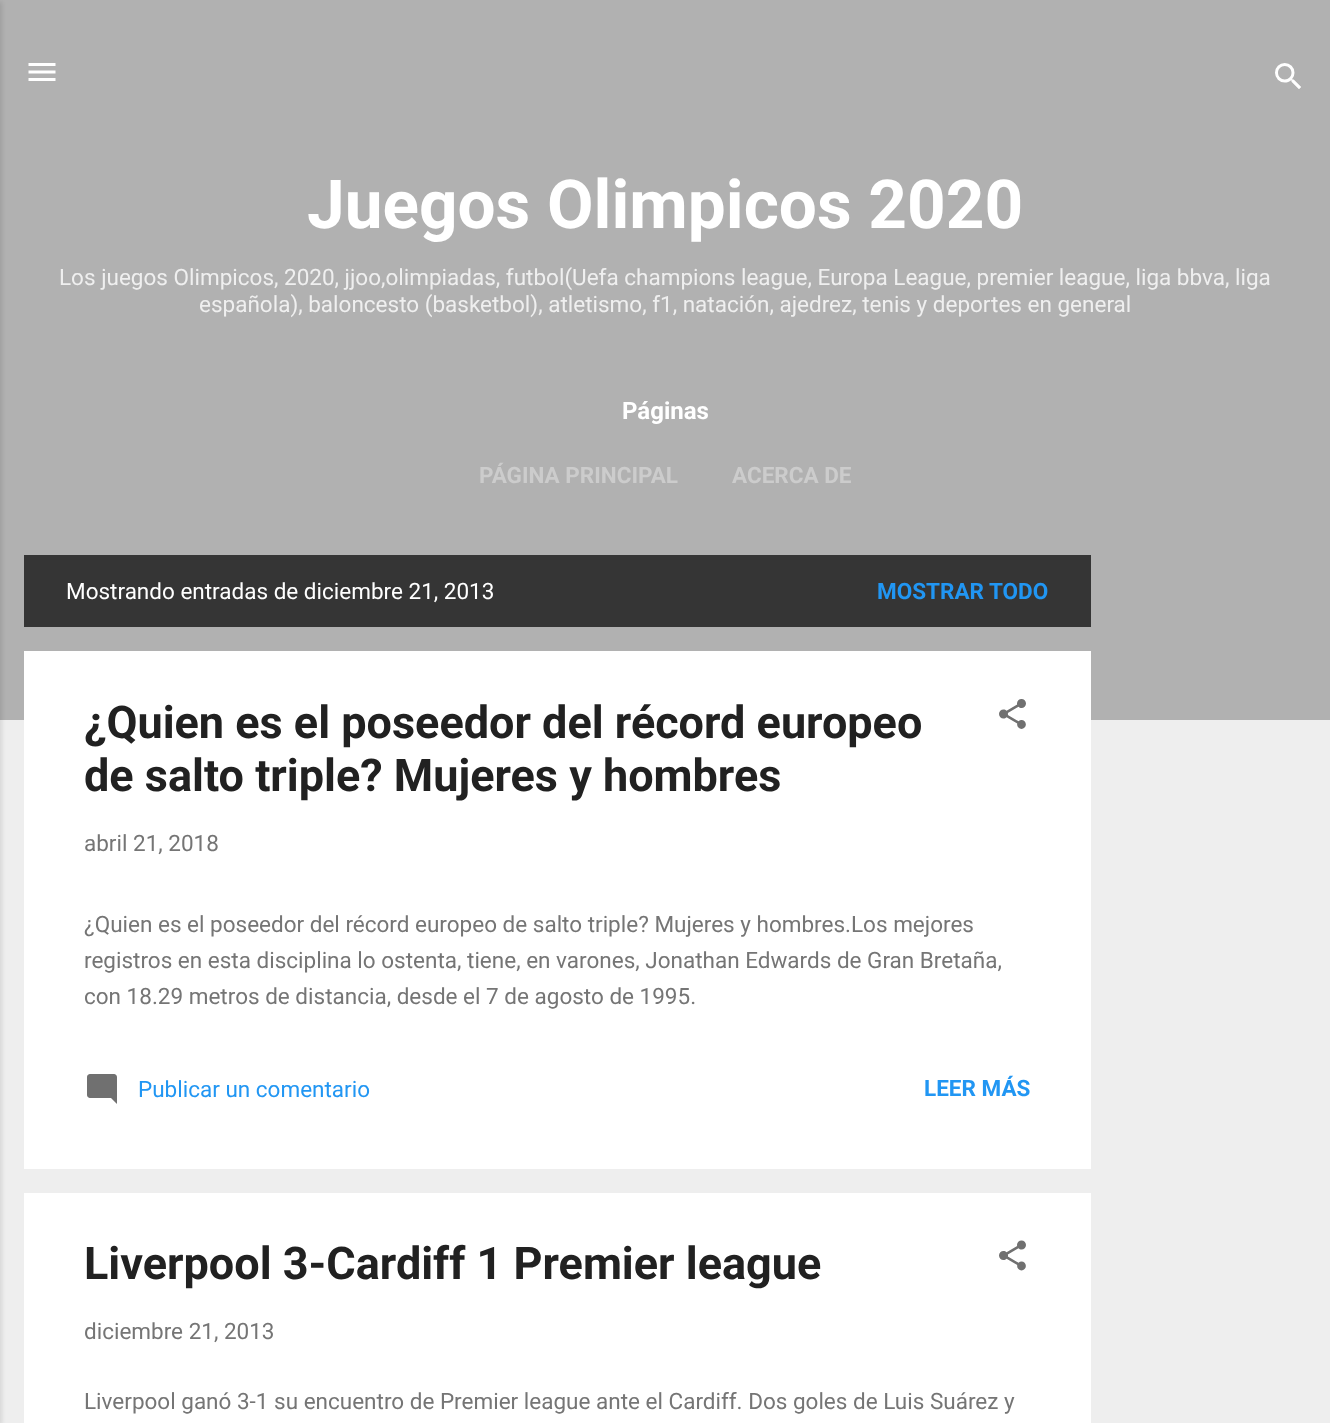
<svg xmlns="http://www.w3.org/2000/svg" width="1330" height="1423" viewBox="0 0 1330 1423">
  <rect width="100%" height="100%" fill="#eee"/>
  <path d="M0 0h1330v720H0z" fill="#b1b1b1"/>
  <path d="M-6 2h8v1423H-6z" fill="#0000001a" filter="blur(2px)"/>
  <image x="28" y="63" width="28" height="18" href="img/1.png"/>
  <image x="1275" y="63" width="26" height="26" href="img/2.png"/>
  <path d="M24 555h1067v72H24z" fill="#353535"/>
  <path d="M24 651h1067v518H24z" fill="#fff"/>
  <image x="999" y="699" width="27" height="30" href="img/3.png"/>
  <image x="87" y="1074" width="30" height="30" href="img/4.png"/>
  <path d="M24 1193h1067v230H24z" fill="#fff"/>
  <image x="999" y="1240" width="27" height="31" href="img/5.png"/>
  <text x="307" y="228" font-family="Roboto" font-size="67.5" font-weight="bold" fill="#fff">Juegos Olimpicos 2020</text>
  <g font-family="Roboto" font-size="22.5" fill="#efefef">
    <text x="59" y="285">Los juegos Olimpicos, 2020, jjoo,olimpiadas, futbol(Uefa champions league, Europa League, premier league, liga bbva, liga</text>
    <text x="199" y="312">española), baloncesto (basketbol), atletismo, f1, natación, ajedrez, tenis y deportes en general</text>
  </g>
  <text x="622" y="419" font-family="Roboto" font-size="24" font-weight="bold" fill="#fff">Páginas</text>
  <g font-family="Roboto" font-size="22.5" font-weight="bold" fill="#ccc">
    <text x="479" y="483">PÁGINA PRINCIPAL</text>
    <text x="732" y="483">ACERCA DE</text>
  </g>
  <text x="66" y="599" font-family="Roboto" font-size="22.5" fill="#fff">Mostrando entradas de diciembre 21, 2013</text>
  <text x="877" y="599" font-family="Roboto" font-size="22.5" font-weight="bold" fill="#2196f3">MOSTRAR TODO</text>
  <g font-family="Roboto" font-size="45" font-weight="bold" fill="#212121">
    <text x="84" y="738">¿Quien es el poseedor del récord europeo</text>
    <text x="84" y="791">de salto triple? Mujeres y hombres</text>
  </g>
  <g font-family="Roboto" font-size="22.5" fill="#757575">
    <text x="84" y="851">abril 21, 2018</text>
    <text x="84" y="932">¿Quien es el poseedor del récord europeo de salto triple? Mujeres y hombres.Los mejores</text>
    <text x="84" y="968">registros en esta disciplina lo ostenta, tiene, en varones, Jonathan Edwards de Gran Bretaña,</text>
    <text x="84" y="1004">con 18.29 metros de distancia, desde el 7 de agosto de 1995.</text>
  </g>
  <text x="138" y="1097" font-family="Roboto" font-size="22.5" fill="#2196f3">Publicar un comentario</text>
  <text x="924" y="1096" font-family="Roboto" font-size="22.5" font-weight="bold" fill="#2196f3">LEER MÁS</text>
  <text x="84" y="1279" font-family="Roboto" font-size="45" font-weight="bold" fill="#212121">Liverpool 3-Cardiff 1 Premier league</text>
  <g font-family="Roboto" font-size="22.5" fill="#757575">
    <text x="84" y="1339">diciembre 21, 2013</text>
    <text x="84" y="1409">Liverpool ganó 3-1 su encuentro de Premier league ante el Cardiff. Dos goles de Luis Suárez y</text>
  </g>
</svg>
